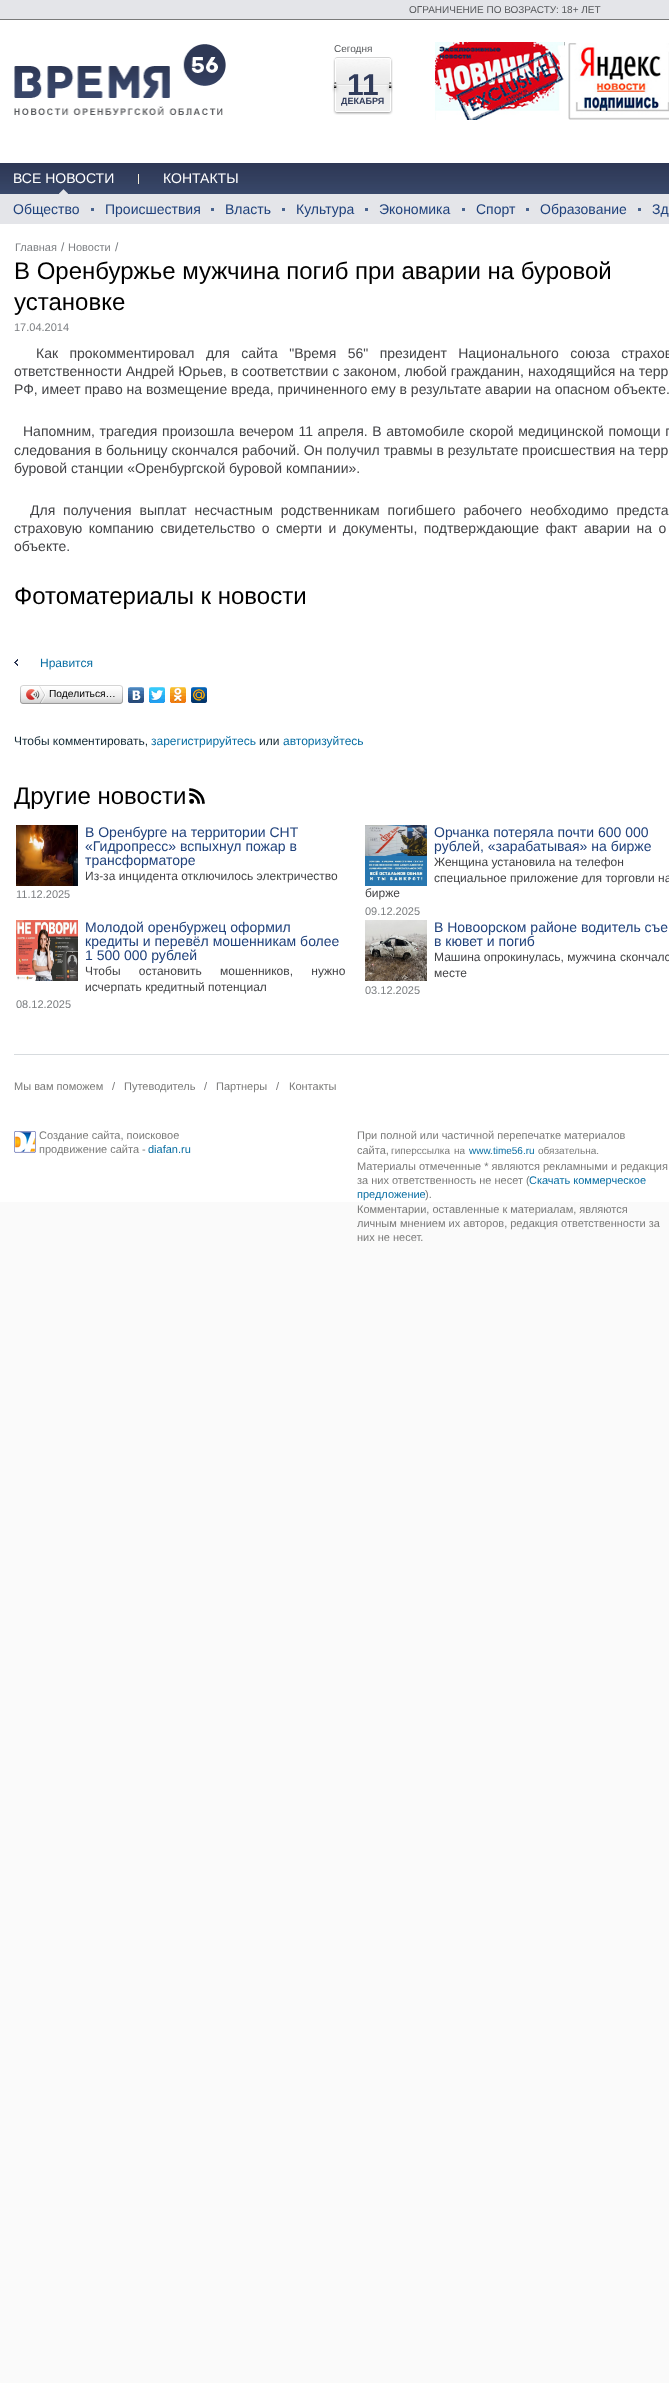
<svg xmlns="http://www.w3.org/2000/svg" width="669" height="2383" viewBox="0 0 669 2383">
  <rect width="100%" height="100%" fill="#fafafa"/>
  <path d="M0 20h669v1182H0z" fill="#fff"/>
  <path d="M0 0h669v19H0z" fill="#e4e5e9"/>
  <path d="M0 19h669v1H0z" fill="#7a7a7a"/>
  <image x="14" y="44" width="212" height="71" href="img/1.png"/>
  <image x="332" y="57" width="61" height="58" href="img/2.png"/>
  <image x="435" y="42" width="130" height="78" href="img/3.png"/>
  <image x="568" y="43" width="101" height="77" href="img/4.png"/>
  <image x="0" y="163" width="669" height="31" href="img/5.png"/>
  <image x="59" y="189" width="9" height="5" href="img/6.png"/>
  <path d="M138 174h1v10H138z" fill="#f6eeda"/>
  <path d="M0 194h669v30H0z" fill="#e4e5e9"/>
  <path d="M91 208h3v3H91z" fill="#4a648e"/>
  <path d="M211 208h3v3H211z" fill="#4a648e"/>
  <path d="M282 208h3v3H282z" fill="#4a648e"/>
  <path d="M365 208h3v3H365z" fill="#4a648e"/>
  <path d="M462 208h3v3H462z" fill="#4a648e"/>
  <path d="M526 208h3v3H526z" fill="#4a648e"/>
  <path d="M638 208h3v3H638z" fill="#4a648e"/>
  <image x="14" y="659" width="4" height="7" href="img/7.png"/>
  <image x="23" y="685" width="97" height="19" href="img/8.png"/>
  <image x="20" y="685" width="3" height="19" href="img/9.png"/>
  <image x="26" y="686" width="20" height="17" href="img/10.png"/>
  <image x="120" y="685" width="3" height="19" href="img/11.png"/>
  <image x="128" y="687" width="16" height="16" href="img/12.png"/>
  <image x="149" y="687" width="16" height="16" href="img/13.png"/>
  <image x="170" y="687" width="16" height="16" href="img/14.png"/>
  <image x="191" y="687" width="16" height="16" href="img/15.png"/>
  <image x="189" y="788" width="16" height="16" href="img/16.png"/>
  <image x="16" y="825" width="62" height="61" href="img/17.png"/>
  <image x="365" y="825" width="62" height="61" href="img/18.png"/>
  <image x="16" y="920" width="62" height="61" href="img/19.png"/>
  <image x="365" y="920" width="62" height="61" href="img/20.png"/>
  <path d="M14 1054h655v1H14z" fill="#d7dbde"/>
  <image x="14" y="1131" width="22" height="22" href="img/21.png"/>
  <g font-family="Liberation Sans" font-size="10" fill="#56585b">
    <text x="409" y="13">ОГРАНИЧЕНИЕ ПО ВОЗРАСТУ: 18+ ЛЕТ</text>
    <text x="334" y="52">Сегодня</text>
  </g>
  <text x="347" y="95" font-family="Liberation Sans" font-size="30" font-weight="bold" fill="#313c5b">11</text>
  <text x="341" y="104" font-family="Liberation Sans" font-size="9" font-weight="bold" fill="#313c5b">ДЕКАБРЯ</text>
  <g font-family="Liberation Sans" font-size="14" fill="#fff">
    <text x="13" y="183">ВСЕ НОВОСТИ</text>
    <text x="163" y="183">КОНТАКТЫ</text>
  </g>
  <g font-family="Liberation Sans" font-size="14" fill="#20427c">
    <text x="13" y="214">Общество</text>
    <text x="105" y="214">Происшествия</text>
    <text x="225" y="214">Власть</text>
    <text x="296" y="214">Культура</text>
    <text x="379" y="214">Экономика</text>
    <text x="476" y="214">Спорт</text>
    <text x="540" y="214">Образование</text>
    <text x="652" y="214">Зд</text>
  </g>
  <text x="15" y="251" font-family="Liberation Sans" font-size="11" fill="#7b7e81">Главная</text>
  <text x="61" y="251" font-family="Liberation Sans" font-size="12" fill="#7b7e81">/</text>
  <text x="68" y="251" font-family="Liberation Sans" font-size="11" fill="#7b7e81">Новости</text>
  <text x="115" y="251" font-family="Liberation Sans" font-size="12" fill="#7b7e81">/</text>
  <g font-family="Liberation Sans" font-size="24" fill="#000">
    <text x="14" y="279">В Оренбуржье мужчина погиб при аварии на буровой</text>
    <text x="14" y="310">установке</text>
  </g>
  <text x="14" y="331" font-family="Liberation Sans" font-size="11" fill="#7b7e81">17.04.2014</text>
  <g font-family="Liberation Sans" font-size="14" fill="#434447">
    <text x="36" y="358" word-spacing="7.5">Как прокомментировал для сайта "Время 56" президент Национального союза страхов</text>
    <text x="14" y="376" word-spacing="0.1">ответственности Андрей Юрьев, в соответствии с законом, любой гражданин, находящийся на терр</text>
    <text x="14" y="394">РФ, имеет право на возмещение вреда, причиненного ему в результате аварии на опасном объекте.</text>
    <text x="23" y="436" word-spacing="0.75">Напомним, трагедия произошла вечером 11 апреля. В автомобиле скорой медицинской помощи п</text>
    <text x="14" y="455">следования в больницу скончался рабочий. Он получил травмы в результате происшествия на терр</text>
    <text x="14" y="473">буровой станции «Оренбургской буровой компании».</text>
    <text x="30" y="515" word-spacing="4">Для получения выплат несчастным родственникам погибшего рабочего необходимо предста</text>
    <text x="14" y="533" word-spacing="2.5">страховую компанию свидетельство о смерти и документы, подтверждающие факт аварии на о</text>
    <text x="14" y="551">объекте.</text>
  </g>
  <text x="14" y="604" font-family="Liberation Sans" font-size="24" fill="#000">Фотоматериалы к новости</text>
  <text x="40" y="667" font-family="Liberation Sans" font-size="12" fill="#096ea3">Нравится</text>
  <text x="49" y="697" font-family="Liberation Sans" font-size="10.25" fill="#000">Поделиться…</text>
  <text x="14" y="745" font-family="Liberation Sans" font-size="12" fill="#142a35">Чтобы комментировать,</text>
  <text x="151" y="745" font-family="Liberation Sans" font-size="12" fill="#096ea3">зарегистрируйтесь</text>
  <text x="259" y="745" font-family="Liberation Sans" font-size="12" fill="#142a35">или</text>
  <text x="283" y="745" font-family="Liberation Sans" font-size="12" fill="#096ea3">авторизуйтесь</text>
  <text x="14" y="804" font-family="Liberation Sans" font-size="24" fill="#000">Другие новости</text>
  <g font-family="Liberation Sans" font-size="14" fill="#20427c">
    <text x="85" y="837">В Оренбурге на территории СНТ</text>
    <text x="85" y="851">«Гидропресс» вспыхнул пожар в</text>
    <text x="85" y="865">трансформаторе</text>
  </g>
  <text x="85" y="880" font-family="Liberation Sans" font-size="12" fill="#434447">Из-за инцидента отключилось электричество</text>
  <text x="16" y="898" font-family="Liberation Sans" font-size="11" fill="#7b7e81">11.12.2025</text>
  <g font-family="Liberation Sans" font-size="14" fill="#20427c">
    <text x="434" y="837">Орчанка потеряла почти 600 000</text>
    <text x="434" y="851">рублей, «зарабатывая» на бирже</text>
  </g>
  <g font-family="Liberation Sans" font-size="12" fill="#434447">
    <text x="434" y="866">Женщина установила на телефон</text>
    <text x="434" y="882">специальное приложение для торговли на</text>
    <text x="365" y="897">бирже</text>
  </g>
  <text x="365" y="915" font-family="Liberation Sans" font-size="11" fill="#7b7e81">09.12.2025</text>
  <g font-family="Liberation Sans" font-size="14" fill="#20427c">
    <text x="85" y="932">Молодой оренбуржец оформил</text>
    <text x="85" y="946">кредиты и перевёл мошенникам более</text>
    <text x="85" y="960">1 500 000 рублей</text>
  </g>
  <g font-family="Liberation Sans" font-size="12" fill="#434447">
    <text x="85" y="975" word-spacing="15">Чтобы остановить мошенников, нужно</text>
    <text x="85" y="991">исчерпать кредитный потенциал</text>
  </g>
  <text x="16" y="1008" font-family="Liberation Sans" font-size="11" fill="#7b7e81">08.12.2025</text>
  <g font-family="Liberation Sans" font-size="14" fill="#20427c">
    <text x="434" y="932">В Новоорском районе водитель съе</text>
    <text x="434" y="946">в кювет и погиб</text>
  </g>
  <g font-family="Liberation Sans" font-size="12" fill="#434447">
    <text x="434" y="961">Машина опрокинулась, мужчина</text>
    <text x="620" y="961">скончалс</text>
    <text x="434" y="977">месте</text>
  </g>
  <text x="365" y="994" font-family="Liberation Sans" font-size="11" fill="#7b7e81">03.12.2025</text>
  <g font-family="Liberation Sans" font-size="11" fill="#7a7a79">
    <text x="14" y="1090">Мы вам поможем</text>
    <text x="112" y="1090">/</text>
    <text x="124" y="1090">Путеводитель</text>
    <text x="204" y="1090">/</text>
    <text x="216" y="1090">Партнеры</text>
    <text x="276" y="1090">/</text>
    <text x="289" y="1090">Контакты</text>
    <text x="39" y="1139">Создание сайта, поисковое</text>
    <text x="39" y="1153">продвижение сайта -</text>
  </g>
  <text x="148" y="1153" font-family="Liberation Sans" font-size="11" fill="#096ea3">diafan.ru</text>
  <g font-family="Liberation Sans" font-size="11" fill="#7a7a79">
    <text x="357" y="1139">При полной или частичной перепечатке материалов</text>
    <text x="357" y="1154">сайта,</text>
  </g>
  <g font-family="Liberation Sans" font-size="10" fill="#7a7a79">
    <text x="391" y="1154">гиперссылка</text>
    <text x="454" y="1154">на</text>
  </g>
  <text x="469" y="1154" font-family="Liberation Sans" font-size="10" fill="#096ea3">www.time56.ru</text>
  <text x="538" y="1154" font-family="Liberation Sans" font-size="10" fill="#7a7a79">обязательна.</text>
  <g font-family="Liberation Sans" font-size="11" fill="#7a7a79">
    <text x="357" y="1170">Материалы отмеченные * являются рекламными и редакция</text>
    <text x="357" y="1184">за них ответственность не несет (</text>
  </g>
  <g font-family="Liberation Sans" font-size="11" fill="#096ea3">
    <text x="529" y="1184">Скачать коммерческое</text>
    <text x="357" y="1198">предложение</text>
  </g>
  <g font-family="Liberation Sans" font-size="11" fill="#7a7a79">
    <text x="425" y="1198">).</text>
    <text x="357" y="1213">Комментарии, оставленные к материалам, являются</text>
    <text x="357" y="1227">личным мнением их авторов, редакция ответственности за</text>
    <text x="357" y="1241">них не несет.</text>
  </g>
</svg>
